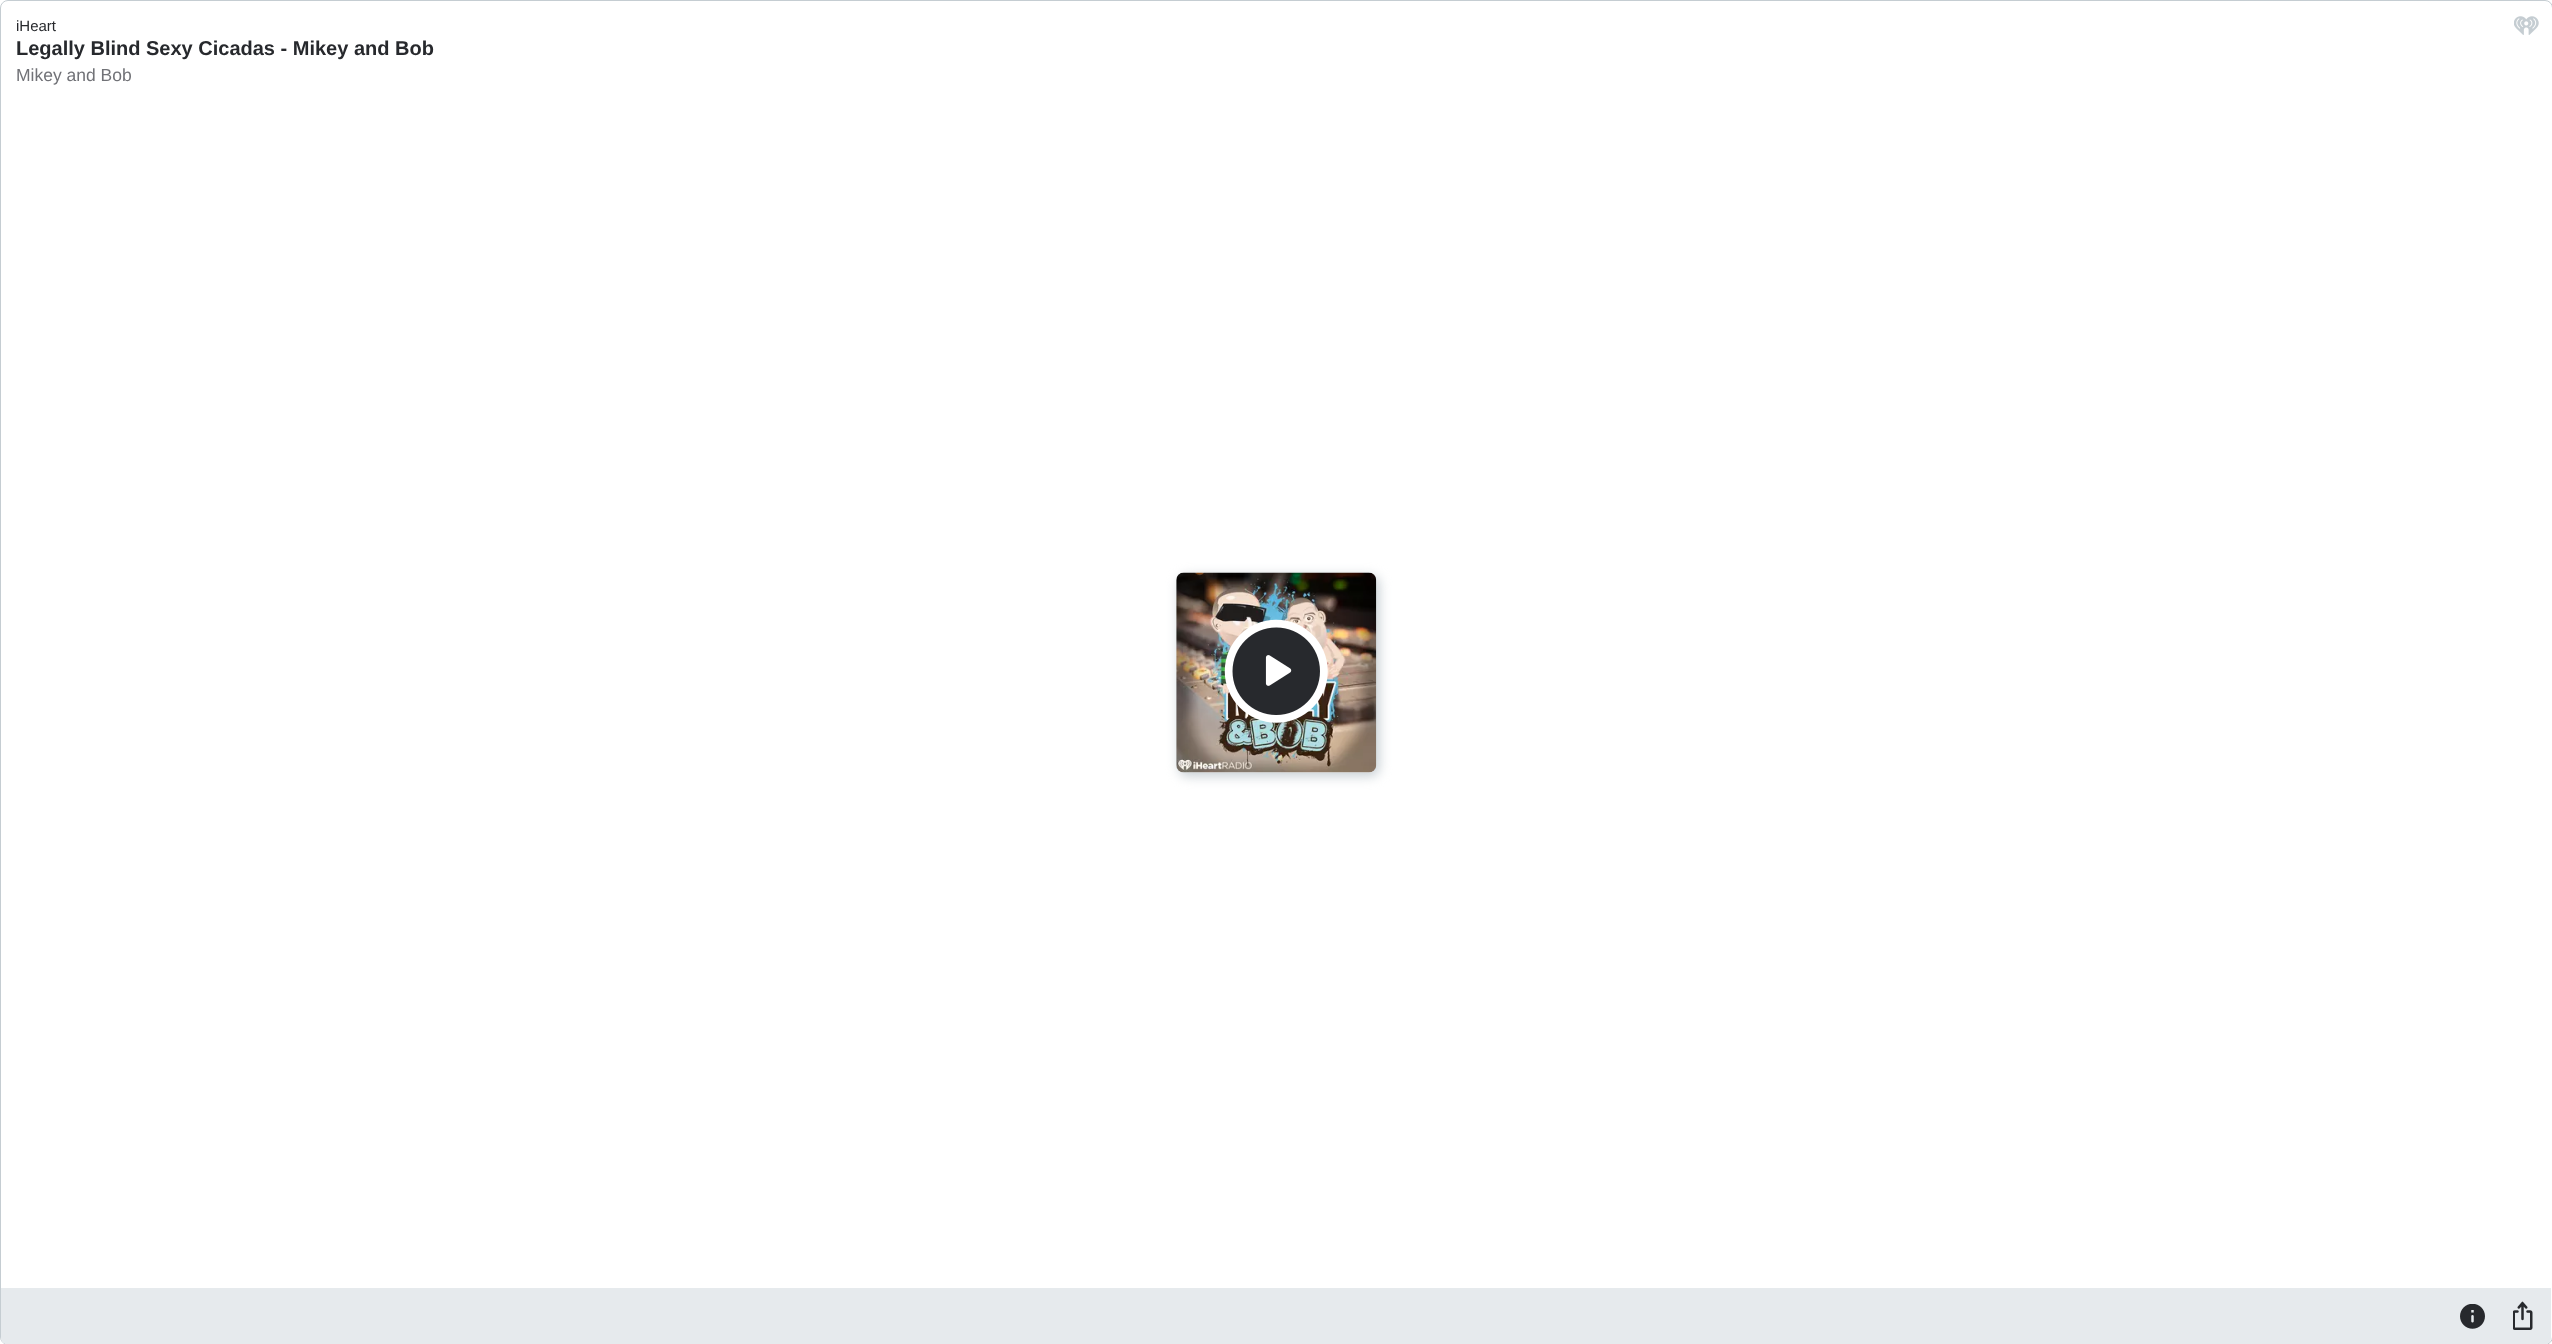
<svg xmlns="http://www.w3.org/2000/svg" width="2552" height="1344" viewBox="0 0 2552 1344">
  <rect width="100%" height="100%" fill="#fff"/>
  <rect x="0.5" y="0.5" width="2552" height="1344" rx="7.5" fill="none" stroke="#c5cdd2"/>
  <image x="2514" y="16" width="25" height="19" href="img/1.png"/>
  <path d="M1 1288H2551V1338C2551 1341.5 2548.5 1344 2545 1344H7C3.5 1344 1 1341.5 1 1338Z" fill="#e6eaed"/>
  <rect x="1179" y="576" width="200" height="200" rx="8" fill="#c5cdd2" filter="blur(6px)"/>
  <rect x="1176" y="573" width="200" height="200" rx="8" fill="#e6eaed"/>
  <image x="1176" y="572" width="201" height="201" href="img/2.png"/>
  <image x="2460" y="1304" width="25" height="25" href="img/3.png"/>
  <image x="2513" y="1301" width="20" height="29" href="img/4.png"/>
  <image x="1224" y="619" width="104" height="104" href="img/5.png"/>
  <text x="16" y="31" font-family="Liberation Sans" font-size="15" fill="#27292d">iHeart</text>
  <text x="16" y="55" font-family="Liberation Sans" font-size="20" font-weight="bold" fill="#27292d">Legally Blind Sexy Cicadas - Mikey and Bob</text>
  <text x="16" y="81" font-family="Liberation Sans" font-size="17.5" fill="#717277">Mikey and Bob</text>
</svg>
